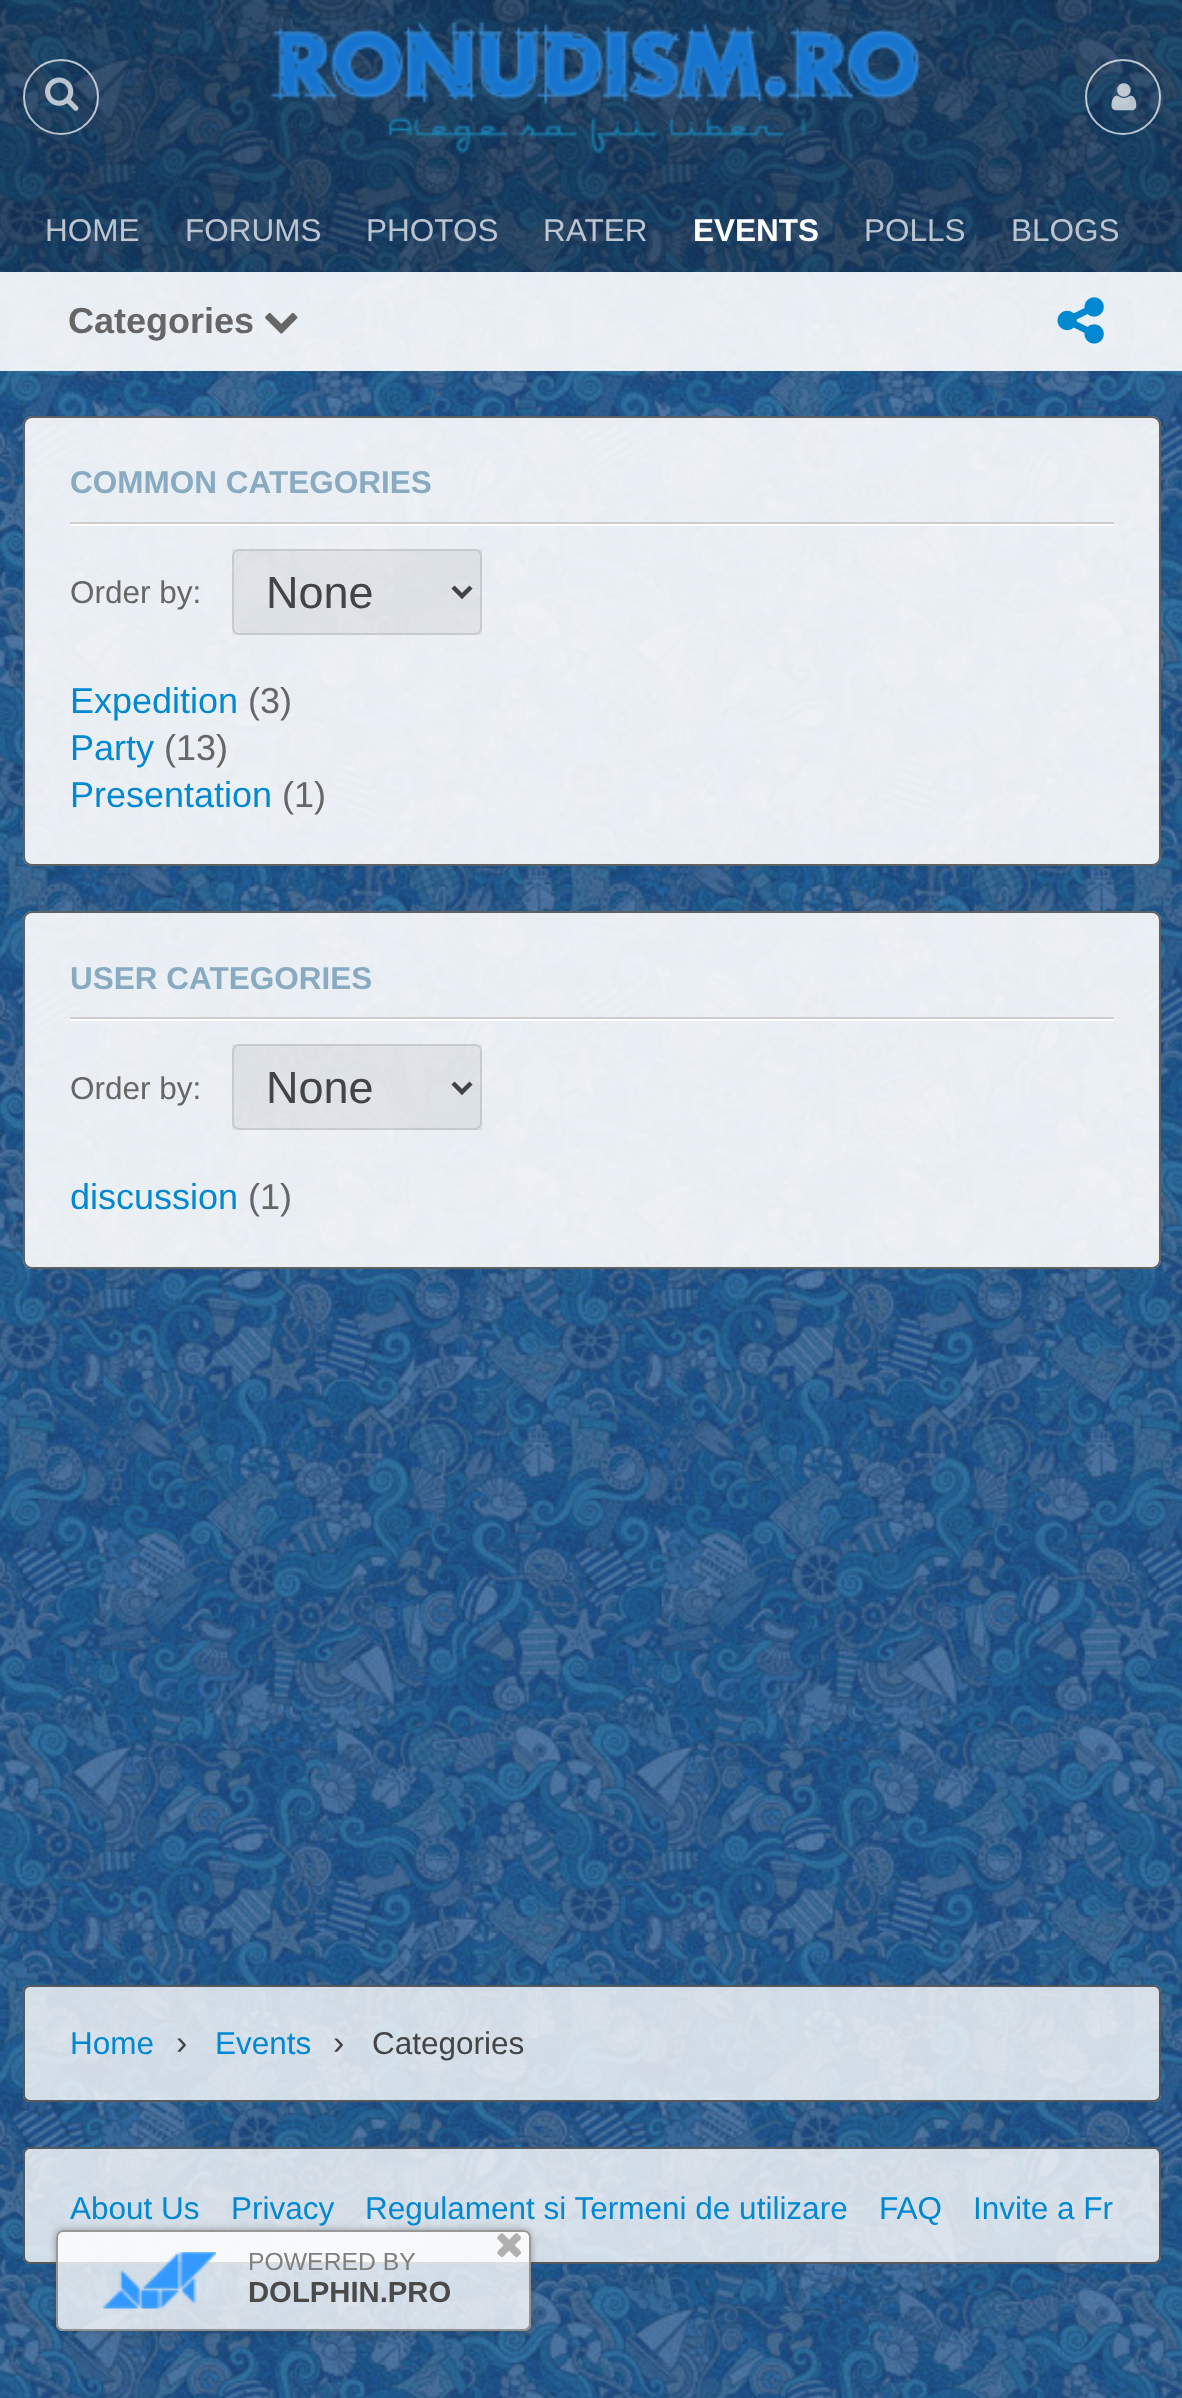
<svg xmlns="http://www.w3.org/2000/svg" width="1182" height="2398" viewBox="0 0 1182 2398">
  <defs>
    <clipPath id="clip1"><path d="M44 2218H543V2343H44ZM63 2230H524C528 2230 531 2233 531 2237V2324C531 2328 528 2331 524 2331H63C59 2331 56 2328 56 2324V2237C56 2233 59 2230 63 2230Z" clip-rule="evenodd"/></clipPath>
  </defs>
  <rect width="100%" height="100%" fill="#fff"/>
  <image x="0" y="0" width="1182" height="2398" href="img/1.png"/>
  <path d="M0 0h1182v187H0z" fill="#0000004d"/>
  <circle cx="61" cy="97" r="37" fill="none" stroke="#ffffffb3" stroke-width="2"/>
  <image x="45" y="77" width="34" height="34" href="img/2.png"/>
  <image x="269" y="22" width="652" height="132" href="img/3.png"/>
  <circle cx="1123" cy="97" r="37" fill="none" stroke="#ffffffb3" stroke-width="2"/>
  <image x="1111" y="83" width="26" height="28" href="img/4.png"/>
  <path d="M0 187h1182v85H0z" fill="#0000004d"/>
  <path d="M0 272h1182v99H0z" fill="#ffffffe6"/>
  <image x="265" y="312" width="33" height="22" href="img/5.png"/>
  <image x="1057" y="297" width="47" height="47" href="img/6.png"/>
  <rect x="23" y="416" width="1138" height="450" rx="9" fill="#ffffffe6"/>
  <rect x="24" y="417" width="1136" height="448" rx="8" fill="none" stroke="#00000099" stroke-width="2"/>
  <path d="M70 522h1044v2H70z" fill="#ccc"/>
  <path d="M70 524h1044v2H70z" fill="#fff"/>
  <path d="M232 549h250v86H232z" fill="#0000000d"/>
  <rect x="233" y="550" width="248" height="84" rx="6" fill="none" stroke="#0000001a" stroke-width="2"/>
  <path d="M453 587L462 596L471 587" fill="none" stroke="#000000b3" stroke-width="4.5"/>
  <rect x="23" y="911" width="1138" height="358" rx="9" fill="#ffffffe6"/>
  <rect x="24" y="912" width="1136" height="356" rx="8" fill="none" stroke="#00000099" stroke-width="2"/>
  <path d="M70 1017h1044v2H70z" fill="#ccc"/>
  <path d="M70 1019h1044v2H70z" fill="#fff"/>
  <path d="M232 1044h250v86H232z" fill="#0000000d"/>
  <rect x="233" y="1045" width="248" height="84" rx="6" fill="none" stroke="#0000001a" stroke-width="2"/>
  <path d="M453 1083L462 1092L471 1083" fill="none" stroke="#000000b3" stroke-width="4.5"/>
  <rect x="23" y="1985" width="1138" height="117" rx="7" fill="#ffffffcc"/>
  <rect x="24" y="1986" width="1136" height="115" rx="6" fill="none" stroke="#00000099" stroke-width="2"/>
  <rect x="23" y="2147" width="1138" height="117" rx="7" fill="#ffffffcc"/>
  <rect x="24" y="2148" width="1136" height="115" rx="6" fill="none" stroke="#00000099" stroke-width="2"/>
  <g clip-path="url(#clip1)">
    <rect x="56" y="2230" width="475" height="101" rx="7" fill="#33333366" filter="blur(3.5px)"/>
  </g>
  <rect x="56" y="2230" width="475" height="101" rx="7" fill="#ffffffcc"/>
  <rect x="57" y="2231" width="473" height="99" rx="6" fill="none" stroke="#808080cc" stroke-width="2"/>
  <image x="497" y="2233" width="24" height="25" href="img/7.png"/>
  <image x="103" y="2252" width="113" height="57" href="img/8.png"/>
  <g font-family="Liberation Sans" font-size="31.5" fill="#bcc5d0">
    <text x="45" y="241">HOME</text>
    <text x="185" y="241">FORUMS</text>
    <text x="366" y="241">PHOTOS</text>
    <text x="543" y="241">RATER</text>
  </g>
  <text x="693" y="241" font-family="Liberation Sans" font-size="31.5" font-weight="bold" fill="#fff">EVENTS</text>
  <g font-family="Liberation Sans" font-size="31.5" fill="#bcc5d0">
    <text x="864" y="241">POLLS</text>
    <text x="1011" y="241">BLOGS</text>
  </g>
  <text x="68" y="333" font-family="Liberation Sans" font-size="36" font-weight="bold" fill="#666">Categories</text>
  <text x="70" y="493" font-family="Liberation Sans" font-size="31.5" font-weight="bold" fill="#88abc2">COMMON CATEGORIES</text>
  <text x="70" y="603" font-family="Liberation Sans" font-size="31.5" fill="#666">Order by:</text>
  <text x="266" y="608" font-family="Liberation Sans" font-size="45" fill="#434445">None</text>
  <text x="70" y="713" font-family="Liberation Sans" font-size="36" fill="#0288d1">Expedition</text>
  <text x="248" y="713" font-family="Liberation Sans" font-size="36" fill="#666">(3)</text>
  <text x="70" y="760" font-family="Liberation Sans" font-size="36" fill="#0288d1">Party</text>
  <text x="164" y="760" font-family="Liberation Sans" font-size="36" fill="#666">(13)</text>
  <text x="70" y="807" font-family="Liberation Sans" font-size="36" fill="#0288d1">Presentation</text>
  <text x="282" y="807" font-family="Liberation Sans" font-size="36" fill="#666">(1)</text>
  <text x="70" y="989" font-family="Liberation Sans" font-size="31.5" font-weight="bold" fill="#88abc2">USER CATEGORIES</text>
  <text x="70" y="1099" font-family="Liberation Sans" font-size="31.5" fill="#666">Order by:</text>
  <text x="266" y="1103" font-family="Liberation Sans" font-size="45" fill="#434445">None</text>
  <text x="70" y="1209" font-family="Liberation Sans" font-size="36" fill="#0288d1">discussion</text>
  <text x="248" y="1209" font-family="Liberation Sans" font-size="36" fill="#666">(1)</text>
  <text x="70" y="2054" font-family="Liberation Sans" font-size="31.5" fill="#0288d1">Home</text>
  <text x="176" y="2054" font-family="Liberation Sans" font-size="34" fill="#434445">›</text>
  <text x="215" y="2054" font-family="Liberation Sans" font-size="31.5" fill="#0288d1">Events</text>
  <text x="333" y="2054" font-family="Liberation Sans" font-size="34" fill="#434445">›</text>
  <text x="372" y="2054" font-family="Liberation Sans" font-size="31.5" fill="#434445">Categories</text>
  <g font-family="Liberation Sans" font-size="31.5" fill="#0288d1">
    <text x="70" y="2219">About Us</text>
    <text x="231" y="2219">Privacy</text>
    <text x="365" y="2219">Regulament si Termeni de utilizare</text>
    <text x="879" y="2219">FAQ</text>
    <text x="973" y="2219">Invite a Fr</text>
  </g>
  <text x="248" y="2270" font-family="Liberation Sans" font-size="24.75" fill="#7f7f7f">POWERED BY</text>
  <text x="248" y="2302" font-family="Liberation Sans" font-size="29.25" font-weight="bold" fill="#4a4a4a">DOLPHIN.PRO</text>
</svg>
